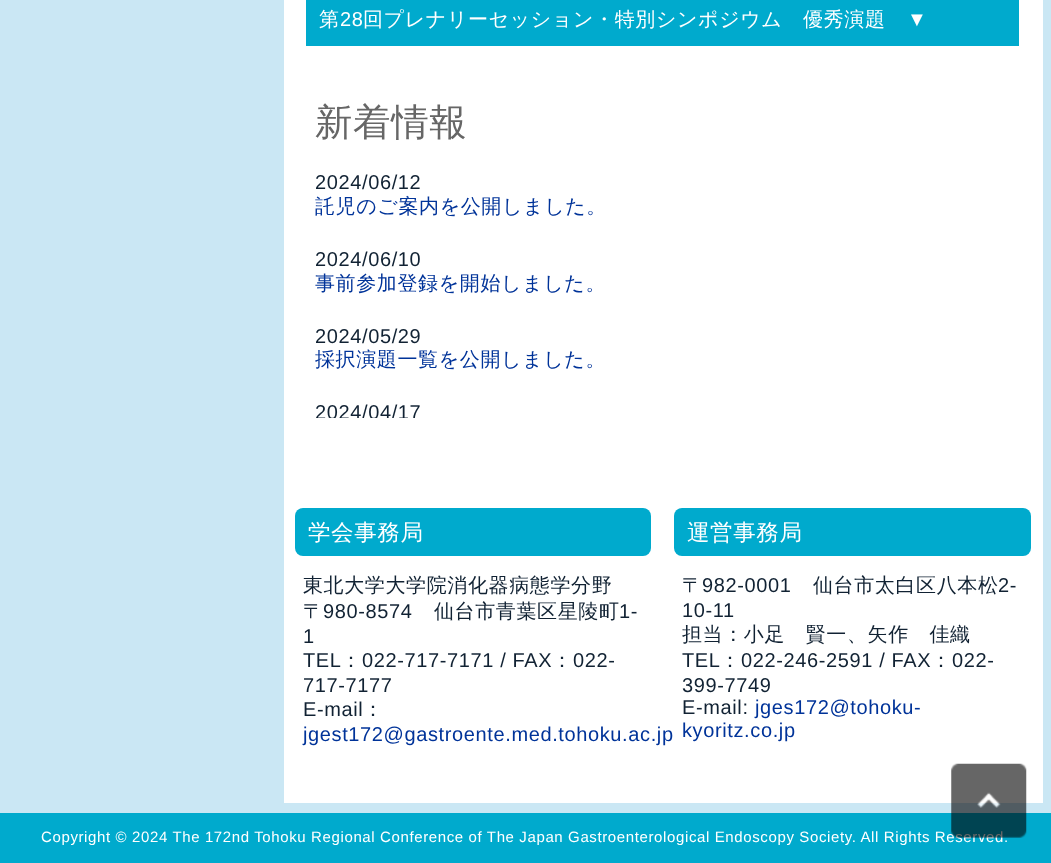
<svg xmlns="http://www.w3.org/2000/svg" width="1051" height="863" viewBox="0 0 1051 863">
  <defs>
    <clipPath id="clip1"><path d="M303 168h706v250H303z"/></clipPath>
  </defs>
  <rect width="100%" height="100%" fill="#cae7f4"/>
  <path d="M284 0h759v803H284z" fill="#fff"/>
  <path d="M306 0h713v46H306z" fill="#00aacd"/>
  <rect x="295" y="508" width="356" height="48" rx="8" fill="#00aacd"/>
  <rect x="674" y="508" width="357" height="48" rx="8" fill="#00aacd"/>
  <path d="M0 813h1051v50H0z" fill="#00aacd"/>
  <text x="319" y="26" font-family="WenQuanYi Zen Hei" font-size="20" font-weight="500" letter-spacing="0.62" fill="#fff">第</text>
  <text x="340" y="26" font-family="Liberation Sans" font-size="20" letter-spacing="0.62" fill="#fff">28</text>
  <text x="363" y="26" font-family="WenQuanYi Zen Hei" font-size="20" font-weight="500" letter-spacing="0.62" fill="#fff">回プレナリーセッション・特別シンポジウム　優秀演題</text>
  <text x="907" y="26" font-family="Liberation Sans" font-size="20" letter-spacing="0.62" fill="#fff">▼</text>
  <text x="315" y="135" font-family="WenQuanYi Zen Hei" font-size="37.5" font-weight="500" letter-spacing="0.62" fill="#666">新着情報</text>
  <text x="315" y="189" font-family="Liberation Sans" font-size="20" letter-spacing="0.62" fill="#123">2024/06/12</text>
  <text x="315" y="213" font-family="WenQuanYi Zen Hei" font-size="20" font-weight="500" letter-spacing="0.62" fill="#039">託児のご案内を公開しました。</text>
  <text x="315" y="266" font-family="Liberation Sans" font-size="20" letter-spacing="0.62" fill="#123">2024/06/10</text>
  <text x="315" y="290" font-family="WenQuanYi Zen Hei" font-size="20" font-weight="500" letter-spacing="0.62" fill="#039">事前参加登録を開始しました。</text>
  <text x="315" y="343" font-family="Liberation Sans" font-size="20" letter-spacing="0.62" fill="#123">2024/05/29</text>
  <text x="315" y="366" font-family="WenQuanYi Zen Hei" font-size="20" font-weight="500" letter-spacing="0.62" fill="#039">採択演題一覧を公開しました。</text>
  <g clip-path="url(#clip1)">
    <text x="315" y="419" font-family="Liberation Sans" font-size="20" letter-spacing="0.62" fill="#123">2024/04/17</text>
  </g>
  <text x="308" y="540" font-family="WenQuanYi Zen Hei" font-size="22.5" font-weight="500" letter-spacing="0.62" fill="#fff">学会事務局</text>
  <g font-family="WenQuanYi Zen Hei" font-size="20" font-weight="500" letter-spacing="0.62" fill="#123">
    <text x="303" y="592">東北大学大学院消化器病態学分野</text>
    <text x="303" y="618">〒</text>
  </g>
  <text x="323" y="618" font-family="Liberation Sans" font-size="20" letter-spacing="0.62" fill="#123">980-8574</text>
  <text x="434" y="618" font-family="WenQuanYi Zen Hei" font-size="20" font-weight="500" letter-spacing="0.62" fill="#123">仙台市青葉区星陵町</text>
  <g font-family="Liberation Sans" font-size="20" letter-spacing="0.62" fill="#123">
    <text x="619" y="618">1-</text>
    <text x="303" y="643">1</text>
    <text x="303" y="667">TEL</text>
  </g>
  <text x="341" y="667" font-family="WenQuanYi Zen Hei" font-size="20" font-weight="500" letter-spacing="0.62" fill="#123">：</text>
  <text x="362" y="667" font-family="Liberation Sans" font-size="20" letter-spacing="0.62" fill="#123">022-717-7171 / FAX</text>
  <text x="552" y="667" font-family="WenQuanYi Zen Hei" font-size="20" font-weight="500" letter-spacing="0.62" fill="#123">：</text>
  <g font-family="Liberation Sans" font-size="20" letter-spacing="0.62" fill="#123">
    <text x="573" y="667">022-</text>
    <text x="303" y="692">717-7177</text>
    <text x="303" y="716">E-mail</text>
  </g>
  <text x="363" y="716" font-family="WenQuanYi Zen Hei" font-size="20" font-weight="500" letter-spacing="0.62" fill="#123">：</text>
  <text x="303" y="741" font-family="Liberation Sans" font-size="20" letter-spacing="0.62" fill="#039">jgest172@gastroente.med.tohoku.ac.jp</text>
  <text x="687" y="540" font-family="WenQuanYi Zen Hei" font-size="22.5" font-weight="500" letter-spacing="0.62" fill="#fff">運営事務局</text>
  <text x="682" y="592" font-family="WenQuanYi Zen Hei" font-size="20" font-weight="500" letter-spacing="0.62" fill="#123">〒</text>
  <text x="702" y="592" font-family="Liberation Sans" font-size="20" letter-spacing="0.62" fill="#123">982-0001</text>
  <text x="813" y="592" font-family="WenQuanYi Zen Hei" font-size="20" font-weight="500" letter-spacing="0.62" fill="#123">仙台市太白区八本松</text>
  <g font-family="Liberation Sans" font-size="20" letter-spacing="0.62" fill="#123">
    <text x="998" y="592">2-</text>
    <text x="682" y="617">10-11</text>
  </g>
  <text x="682" y="641" font-family="WenQuanYi Zen Hei" font-size="20" font-weight="500" letter-spacing="0.62" fill="#123">担当：小足　賢一、矢作　佳織</text>
  <text x="682" y="667" font-family="Liberation Sans" font-size="20" letter-spacing="0.62" fill="#123">TEL</text>
  <text x="720" y="667" font-family="WenQuanYi Zen Hei" font-size="20" font-weight="500" letter-spacing="0.62" fill="#123">：</text>
  <text x="741" y="667" font-family="Liberation Sans" font-size="20" letter-spacing="0.62" fill="#123">022-246-2591 / FAX</text>
  <text x="931" y="667" font-family="WenQuanYi Zen Hei" font-size="20" font-weight="500" letter-spacing="0.62" fill="#123">：</text>
  <g font-family="Liberation Sans" font-size="20" letter-spacing="0.62" fill="#123">
    <text x="952" y="667">022-</text>
    <text x="682" y="692">399-7749</text>
    <text x="682" y="714">E-mail:</text>
  </g>
  <g font-family="Liberation Sans" font-size="20" letter-spacing="0.62" fill="#039">
    <text x="755" y="714">jges172@tohoku-</text>
    <text x="682" y="737">kyoritz.co.jp</text>
  </g>
  <text x="41" y="842" font-family="Liberation Sans" font-size="15" letter-spacing="0.62" fill="#fff">Copyright © 2024 The 172nd Tohoku Regional Conference of The Japan Gastroenterological Endoscopy Society. All Rights Reserved.</text>
  <image x="951" y="763" width="76" height="75" href="img/1.png"/>
</svg>
